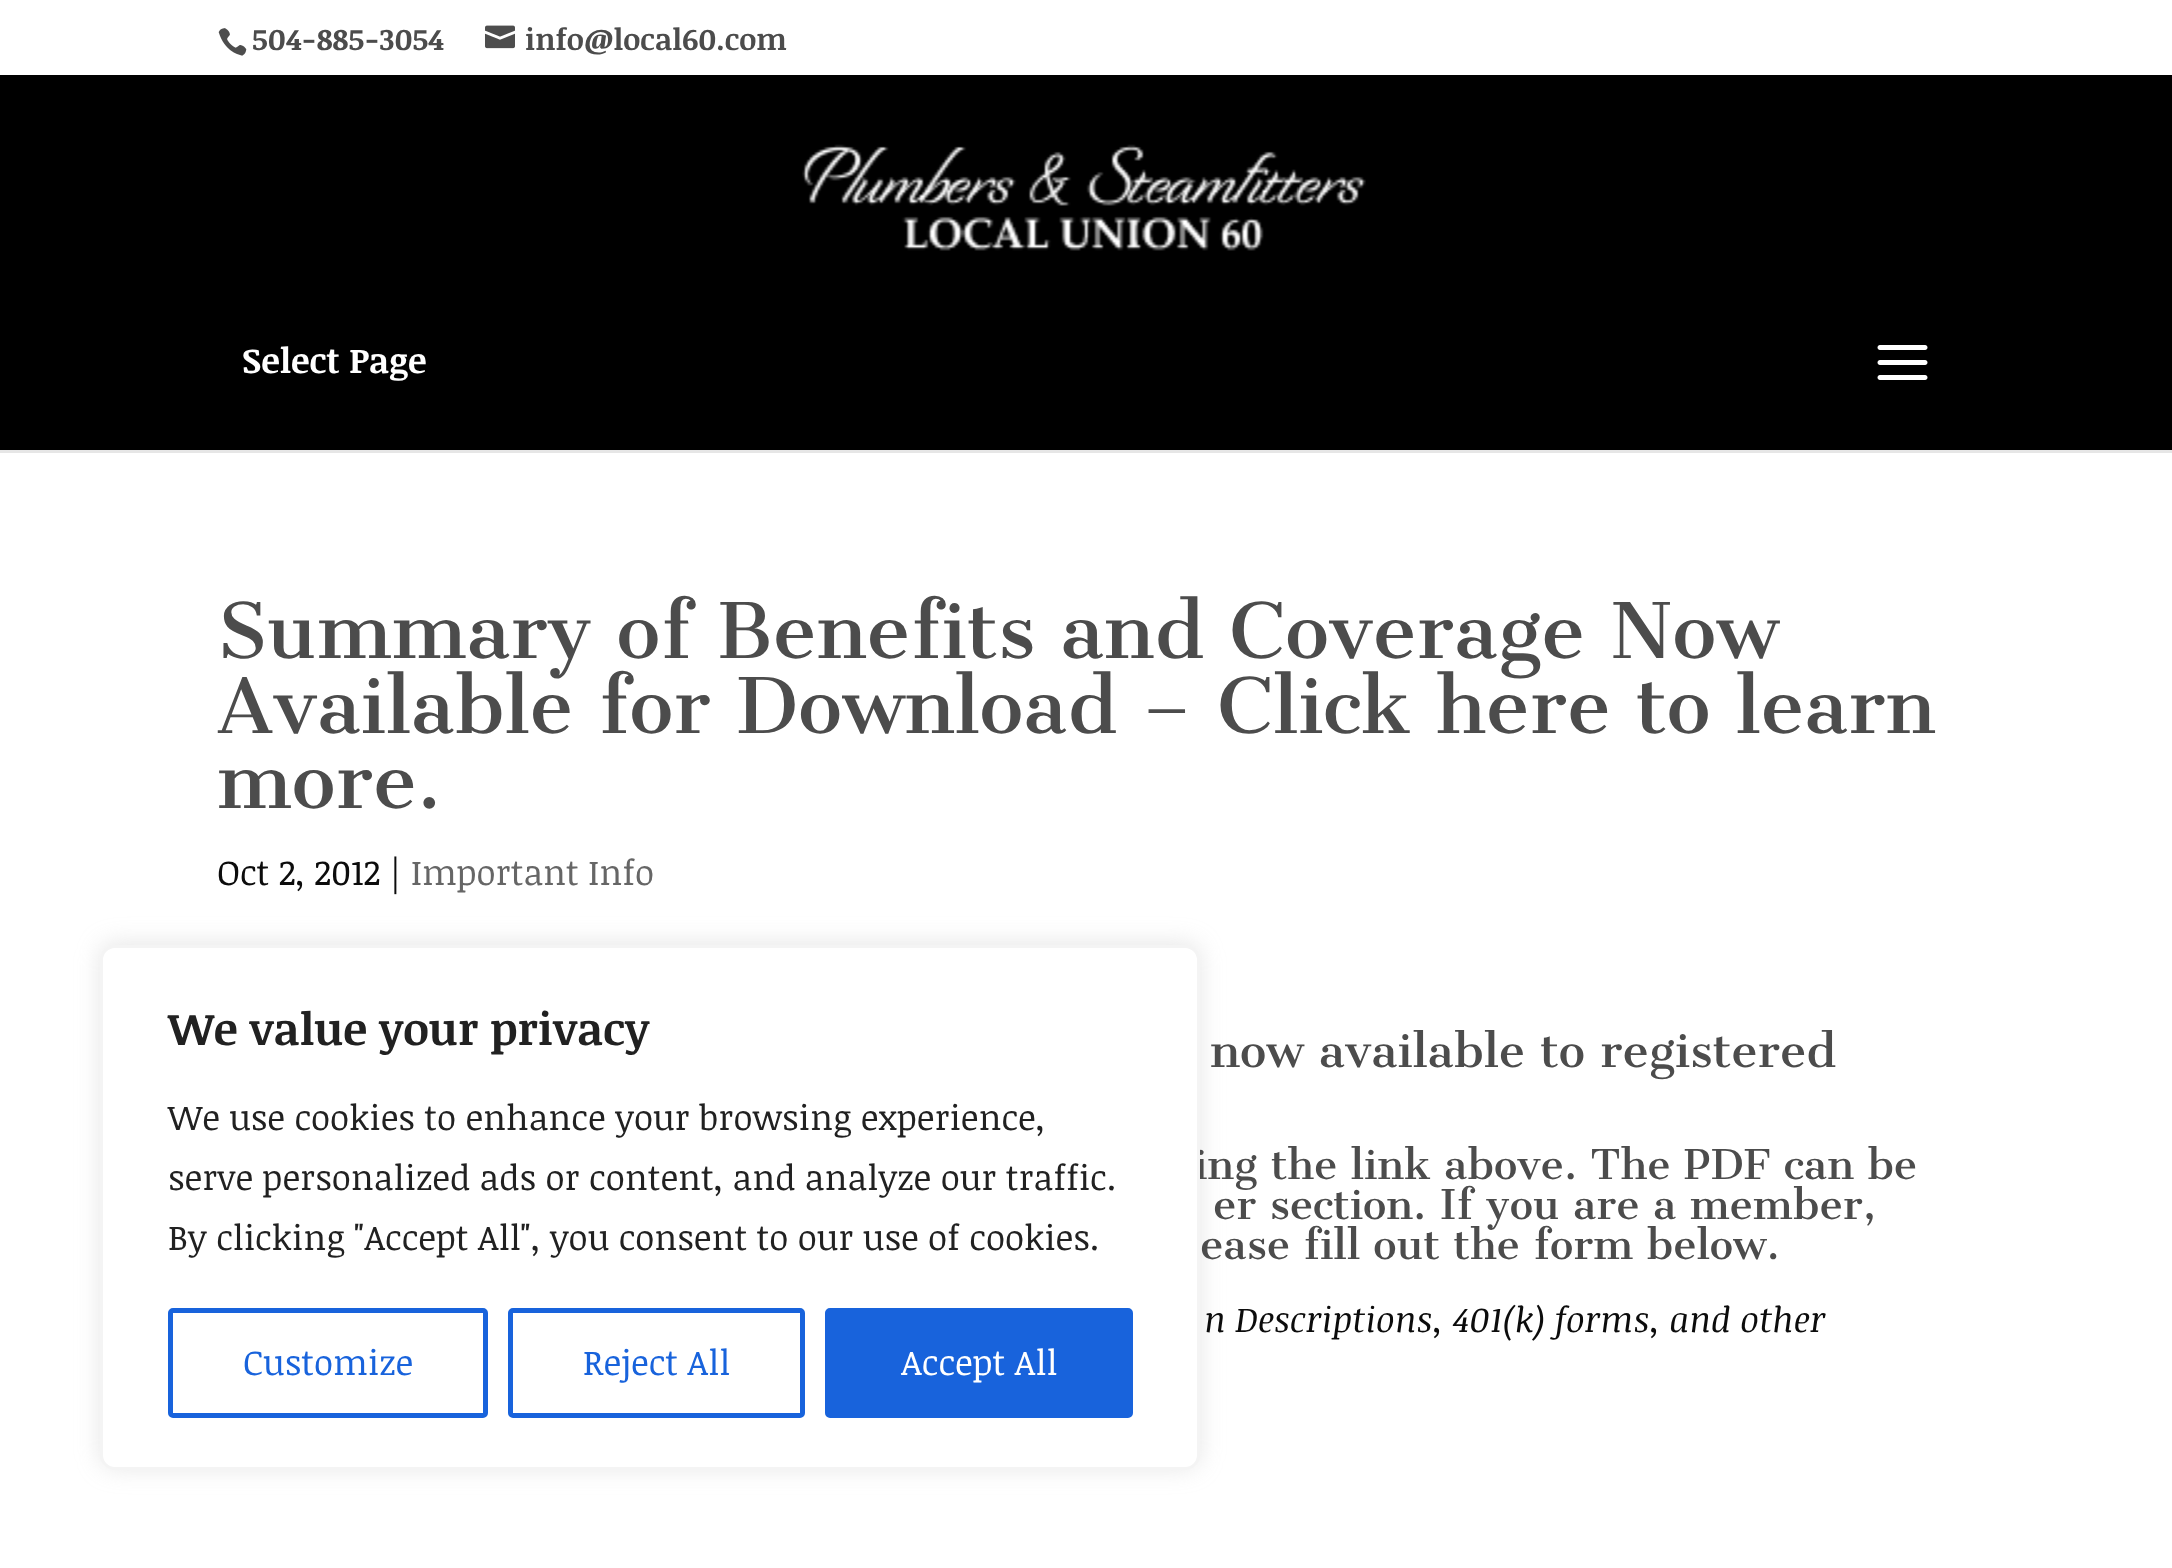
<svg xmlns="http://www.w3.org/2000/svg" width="2172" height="1568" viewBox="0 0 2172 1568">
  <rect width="100%" height="100%" fill="#fff"/>
  <image x="218" y="28" width="29" height="28" href="img/1.png"/>
  <image x="485" y="25" width="30" height="24" href="img/2.png"/>
  <path d="M0 450V453H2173V78H2172V450Z" fill="#e6e6e6"/>
  <path d="M0 75h2172v375H0z" fill="#000"/>
  <image x="802" y="144" width="564" height="107" href="img/3.png"/>
  <image x="1877" y="345" width="51" height="35" href="img/4.png"/>
  <rect x="100" y="943" width="1100" height="525" rx="15" fill="#acabab4d" filter="blur(12.5px)"/>
  <g font-family="Noticia Text" font-size="30" font-weight="bold" fill="#4c4c4c">
    <text x="252" y="50">504-885-3054</text>
    <text x="525" y="50">info@local60.com</text>
  </g>
  <text x="242" y="373" font-family="Noticia Text" font-size="35" font-weight="bold" fill="#fff">Select Page</text>
  <g font-family="Cantata One" font-size="75" fill="#4c4c4c">
    <text x="217" y="658">Summary of Benefits and Coverage Now</text>
    <text x="217" y="733">Available for Download – Click here to learn</text>
    <text x="217" y="808">more.</text>
  </g>
  <text x="217" y="885" font-family="Noticia Text" font-size="35" fill="#0c0c0c">Oct 2, 2012 |</text>
  <text x="411" y="885" font-family="Noticia Text" font-size="35" fill="#666">Important Info</text>
  <text x="1210" y="1067" font-family="Cantata One" font-size="45" fill="#4c4c4c">now available to registered</text>
  <g font-family="Cantata One" font-size="40" fill="#4c4c4c">
    <text x="1194" y="1179">ing the link above. The PDF can be</text>
    <text x="1213" y="1219">er section. If you are a member,</text>
    <text x="1200" y="1259">ease fill out the form below.</text>
  </g>
  <text x="1204" y="1332" font-family="Noticia Text" font-size="35" font-style="italic" fill="#0c0c0c">n Descriptions, 401(k) forms, and other</text>
  <rect x="101.5" y="946.5" width="1097" height="522" rx="13.5" fill="#fff" stroke="#f4f4f4" stroke-width="3"/>
  <text x="168" y="1045" font-family="Noticia Text" font-size="45" font-weight="bold" fill="#212121">We value your privacy</text>
  <g font-family="Noticia Text" font-size="35" fill="#212121">
    <text x="168" y="1130">We use cookies to enhance your browsing experience,</text>
    <text x="168" y="1190">serve personalized ads or content, and analyze our traffic.</text>
    <text x="168" y="1250">By clicking "Accept All", you consent to our use of cookies.</text>
  </g>
  <rect x="170.5" y="1310.5" width="315" height="105" rx="2.5" fill="none" stroke="#1863dc" stroke-width="5"/>
  <text x="243" y="1375" font-family="Noticia Text" font-size="35" fill="#1863dc">Customize</text>
  <rect x="510.5" y="1310.5" width="292" height="105" rx="2.5" fill="none" stroke="#1863dc" stroke-width="5"/>
  <text x="583" y="1375" font-family="Noticia Text" font-size="35" fill="#1863dc">Reject All</text>
  <rect x="827.5" y="1310.5" width="303" height="105" rx="2.5" fill="#1863dc" stroke="#1863dc" stroke-width="5"/>
  <text x="901" y="1375" font-family="Noticia Text" font-size="35" fill="#fff">Accept All</text>
</svg>
